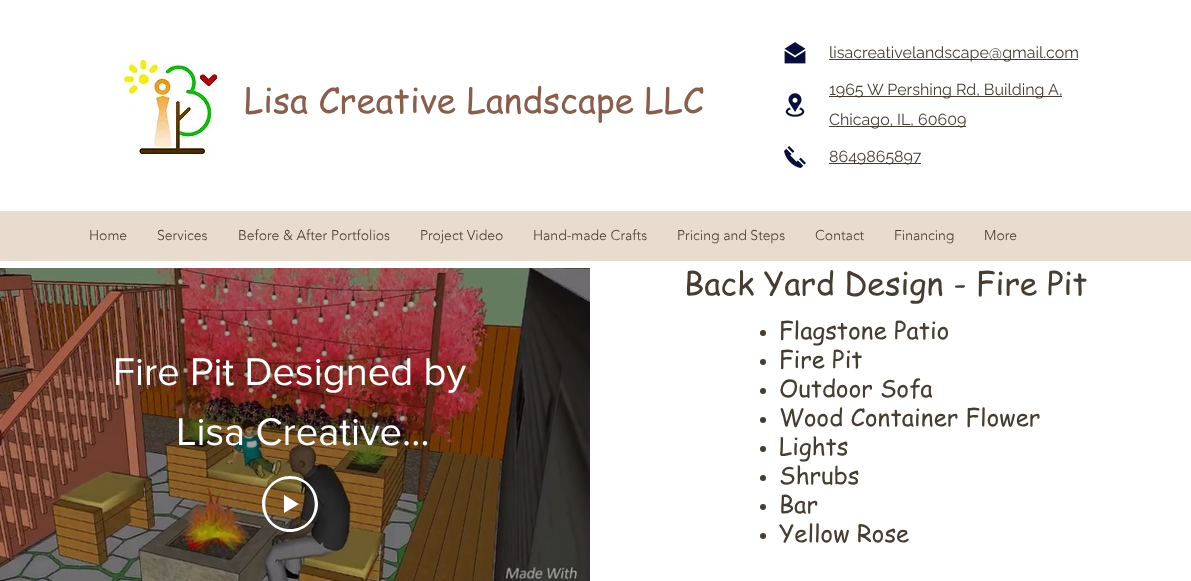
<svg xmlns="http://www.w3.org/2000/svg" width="1191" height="581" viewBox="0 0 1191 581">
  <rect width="100%" height="100%" fill="#fff"/>
  <image x="122" y="54" width="97" height="103" href="img/1.png"/>
  <image x="784" y="42" width="22" height="22" href="img/2.png"/>
  <path d="M829 59h249v1H829z" fill="#463c31"/>
  <image x="785" y="93" width="20" height="24" href="img/3.png"/>
  <path d="M829 96h233v1H829z" fill="#463c31"/>
  <path d="M829 126h137v1H829z" fill="#463c31"/>
  <image x="784" y="146" width="22" height="23" href="img/4.png"/>
  <path d="M829 163h92v1H829z" fill="#463c31"/>
  <path d="M0 211h1191v50H0z" fill="#e7dccd"/>
  <image x="0" y="268" width="590" height="313" href="img/5.png"/>
  <path d="M290 529C323 529 323 479 290 479C257 479 257 529 290 529ZM290 532C275 532 262 519 262 504C262 489 275 476 290 476C305 476 318 489 318 504C318 519 305 532 290 532Z" fill="#fff" fill-rule="evenodd"/>
  <path d="M299 504L284 513V495Z" fill="#fff" fill-rule="evenodd"/>
  <circle cx="763" cy="333" r="3" fill="#463c31"/>
  <circle cx="763" cy="362" r="3" fill="#463c31"/>
  <circle cx="763" cy="391" r="3" fill="#463c31"/>
  <circle cx="763" cy="420" r="3" fill="#463c31"/>
  <circle cx="763" cy="449" r="3" fill="#463c31"/>
  <circle cx="763" cy="478" r="3" fill="#463c31"/>
  <circle cx="763" cy="507" r="3" fill="#463c31"/>
  <circle cx="763" cy="536" r="3" fill="#463c31"/>
  <text x="829" y="58" font-family="Raleway" font-size="16" fill="#463c31">lisacreativelandscape@gmail.com</text>
  <text x="244" y="113" font-family="'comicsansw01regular'" font-size="35" fill="#885e4d">Lisa Creative Landscape LLC</text>
  <g font-family="Raleway" font-size="16" fill="#463c31">
    <text x="829" y="95">1965 W Pershing Rd, Building A,</text>
    <text x="829" y="125">Chicago, IL, 60609</text>
    <text x="829" y="162">8649865897</text>
  </g>
  <g font-family="'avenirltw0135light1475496'" font-size="14" font-weight="300" fill="#463c31">
    <text x="89" y="240">Home</text>
    <text x="157" y="240">Services</text>
    <text x="238" y="240">Before &amp; After Portfolios</text>
    <text x="420" y="240">Project Video</text>
    <text x="533" y="240">Hand-made Crafts</text>
    <text x="677" y="240">Pricing and Steps</text>
    <text x="815" y="240">Contact</text>
    <text x="894" y="240">Financing</text>
    <text x="984" y="240">More</text>
  </g>
  <text x="684" y="295" font-family="'comicsansw01regular'" font-size="32" fill="#463c31">Back Yard Design - Fire Pit</text>
  <g font-family="'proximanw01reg'" font-size="40" fill="#fff">
    <text x="113" y="385">Fire Pit Designed by</text>
    <text x="176" y="445">Lisa Creative…</text>
  </g>
  <g font-family="'comicsansw01regular'" font-size="24" fill="#463c31">
    <text x="779" y="339">Flagstone Patio</text>
    <text x="779" y="368">Fire Pit</text>
    <text x="779" y="397">Outdoor Sofa</text>
    <text x="779" y="426">Wood Container Flower</text>
    <text x="779" y="455">Lights</text>
    <text x="779" y="484">Shrubs</text>
    <text x="779" y="513">Bar</text>
    <text x="779" y="542">Yellow Rose</text>
  </g>
</svg>
